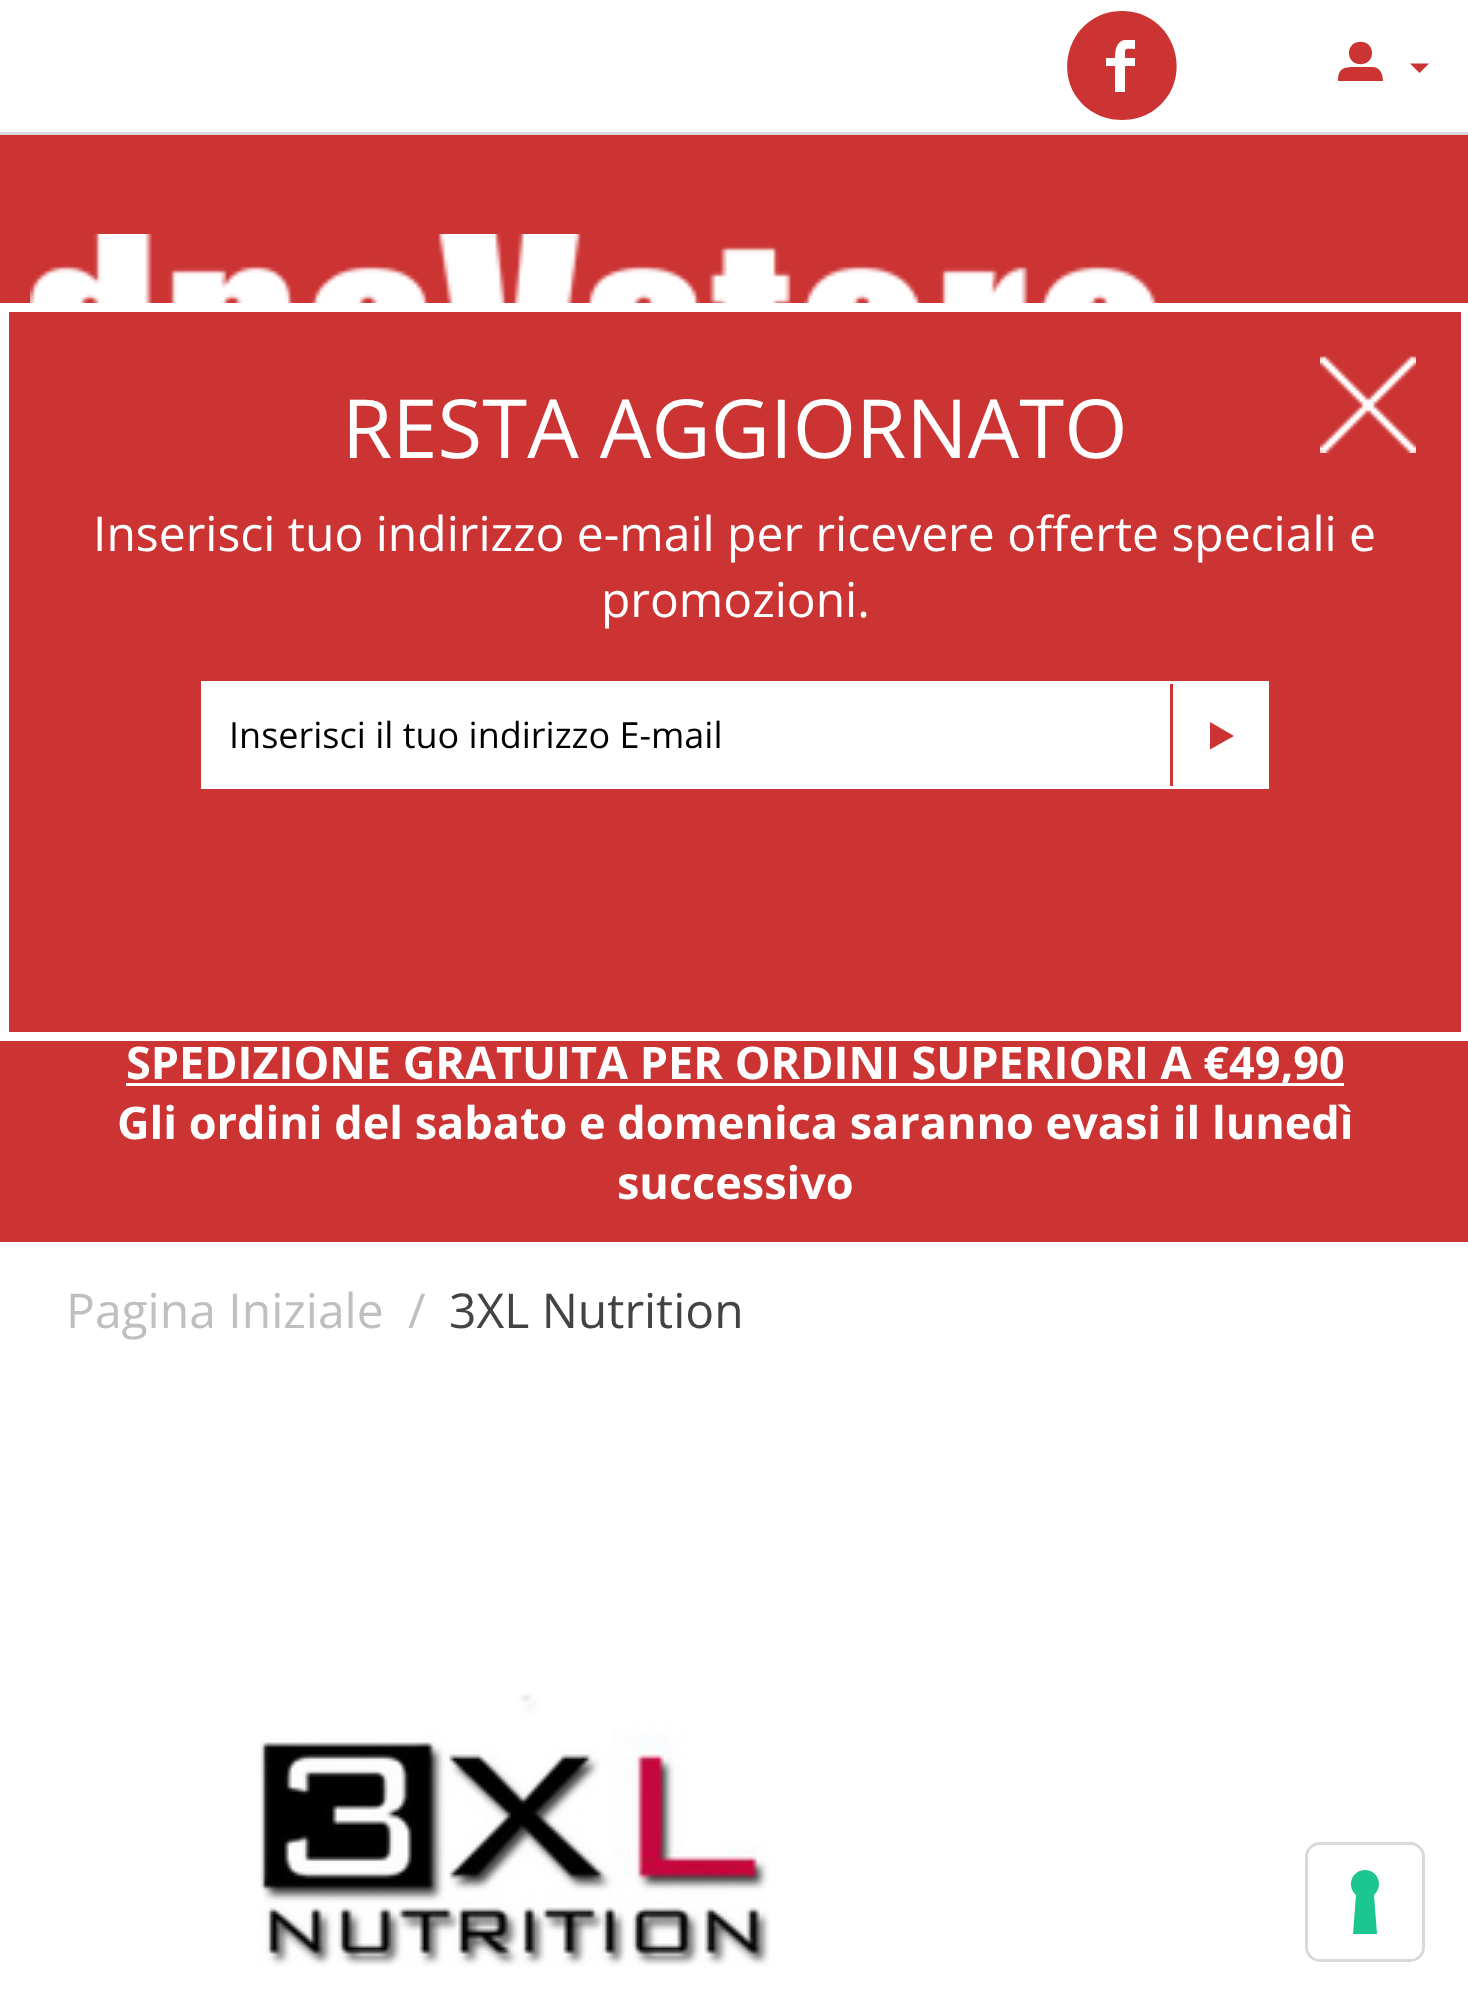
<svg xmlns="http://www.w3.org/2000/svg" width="1468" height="2006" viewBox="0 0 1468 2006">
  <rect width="100%" height="100%" fill="#fff"/>
  <path d="M0 135h1468v1107H0z" fill="#c33"/>
  <path d="M4.5 307.5h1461v729H4.5z" fill="none" stroke="#fff" stroke-width="9"/>
  <image x="1320" y="356" width="96" height="97" href="img/1.png"/>
  <path d="M201 681h1068v108H201z" fill="#fff"/>
  <path d="M1170 684h3v102H1170z" fill="#c33"/>
  <path d="M1210 722L1234 736L1210 749.5Z" fill="#c33"/>
  <path d="M0 132h1468v3H0z" fill="#d9d9d9"/>
  <path d="M1122 11C1068 11 1047 81 1091 111C1100 117 1111 120 1122 120C1133 120 1144 117 1153 111C1197 81 1176 11 1122 11ZM1135 49C1124 49 1125 47 1125 58H1135V66H1125V92H1115V66H1106V58H1115C1115 51 1116 42 1124 40H1135Z" fill="#c33"/>
  <path d="M1349 53C1349 38 1372 38 1372 53C1372 68 1349 68 1349 53ZM1372 67H1357C1345 67 1338 67 1338 81H1383C1383 74 1380 67 1372 67Z" fill="#c33"/>
  <path d="M1419.5 73L1410 63.5H1429Z" fill="#c33"/>
  <image x="30" y="234" width="1128" height="69" href="img/2.png"/>
  <path d="M126 1083h1218v3H126z" fill="#fff"/>
  <image x="260" y="1694" width="511" height="272" href="img/3.png"/>
  <rect x="1306.5" y="1843.5" width="117" height="117" rx="13.5" fill="none" stroke="#d9d9d9" stroke-width="3"/>
  <rect x="1308" y="1845" width="114" height="114" rx="12" fill="#fff"/>
  <path d="M1365 1870C1378 1870 1384 1886 1374 1895L1377 1934H1353L1356 1895C1346 1886 1352 1870 1365 1870Z" fill="#1cc691" fill-rule="evenodd"/>
  <text x="342" y="458" font-family="Open Sans" font-size="81.5" fill="#fff">RESTA AGGIORNATO</text>
  <g font-family="Open Sans" font-size="48" fill="#fff">
    <text x="93" y="551">Inserisci tuo indirizzo e-mail per ricevere offerte speciali e</text>
    <text x="601" y="617">promozioni.</text>
  </g>
  <text x="229" y="748" font-family="Open Sans" font-size="36" fill="#000">Inserisci il tuo indirizzo E-mail</text>
  <g font-family="Open Sans" font-size="45" font-weight="bold" fill="#fff">
    <text x="126" y="1079">SPEDIZIONE GRATUITA PER ORDINI SUPERIORI A €49,90</text>
    <text x="117" y="1139">Gli ordini del sabato e domenica saranno evasi il lunedì</text>
    <text x="617" y="1199">successivo</text>
  </g>
  <g font-family="Open Sans" font-size="48" fill="#bfbfbf">
    <text x="66" y="1328">Pagina Iniziale</text>
    <text x="408" y="1328">/</text>
  </g>
  <text x="449" y="1328" font-family="Open Sans" font-size="48" fill="#434343">3XL Nutrition</text>
</svg>
